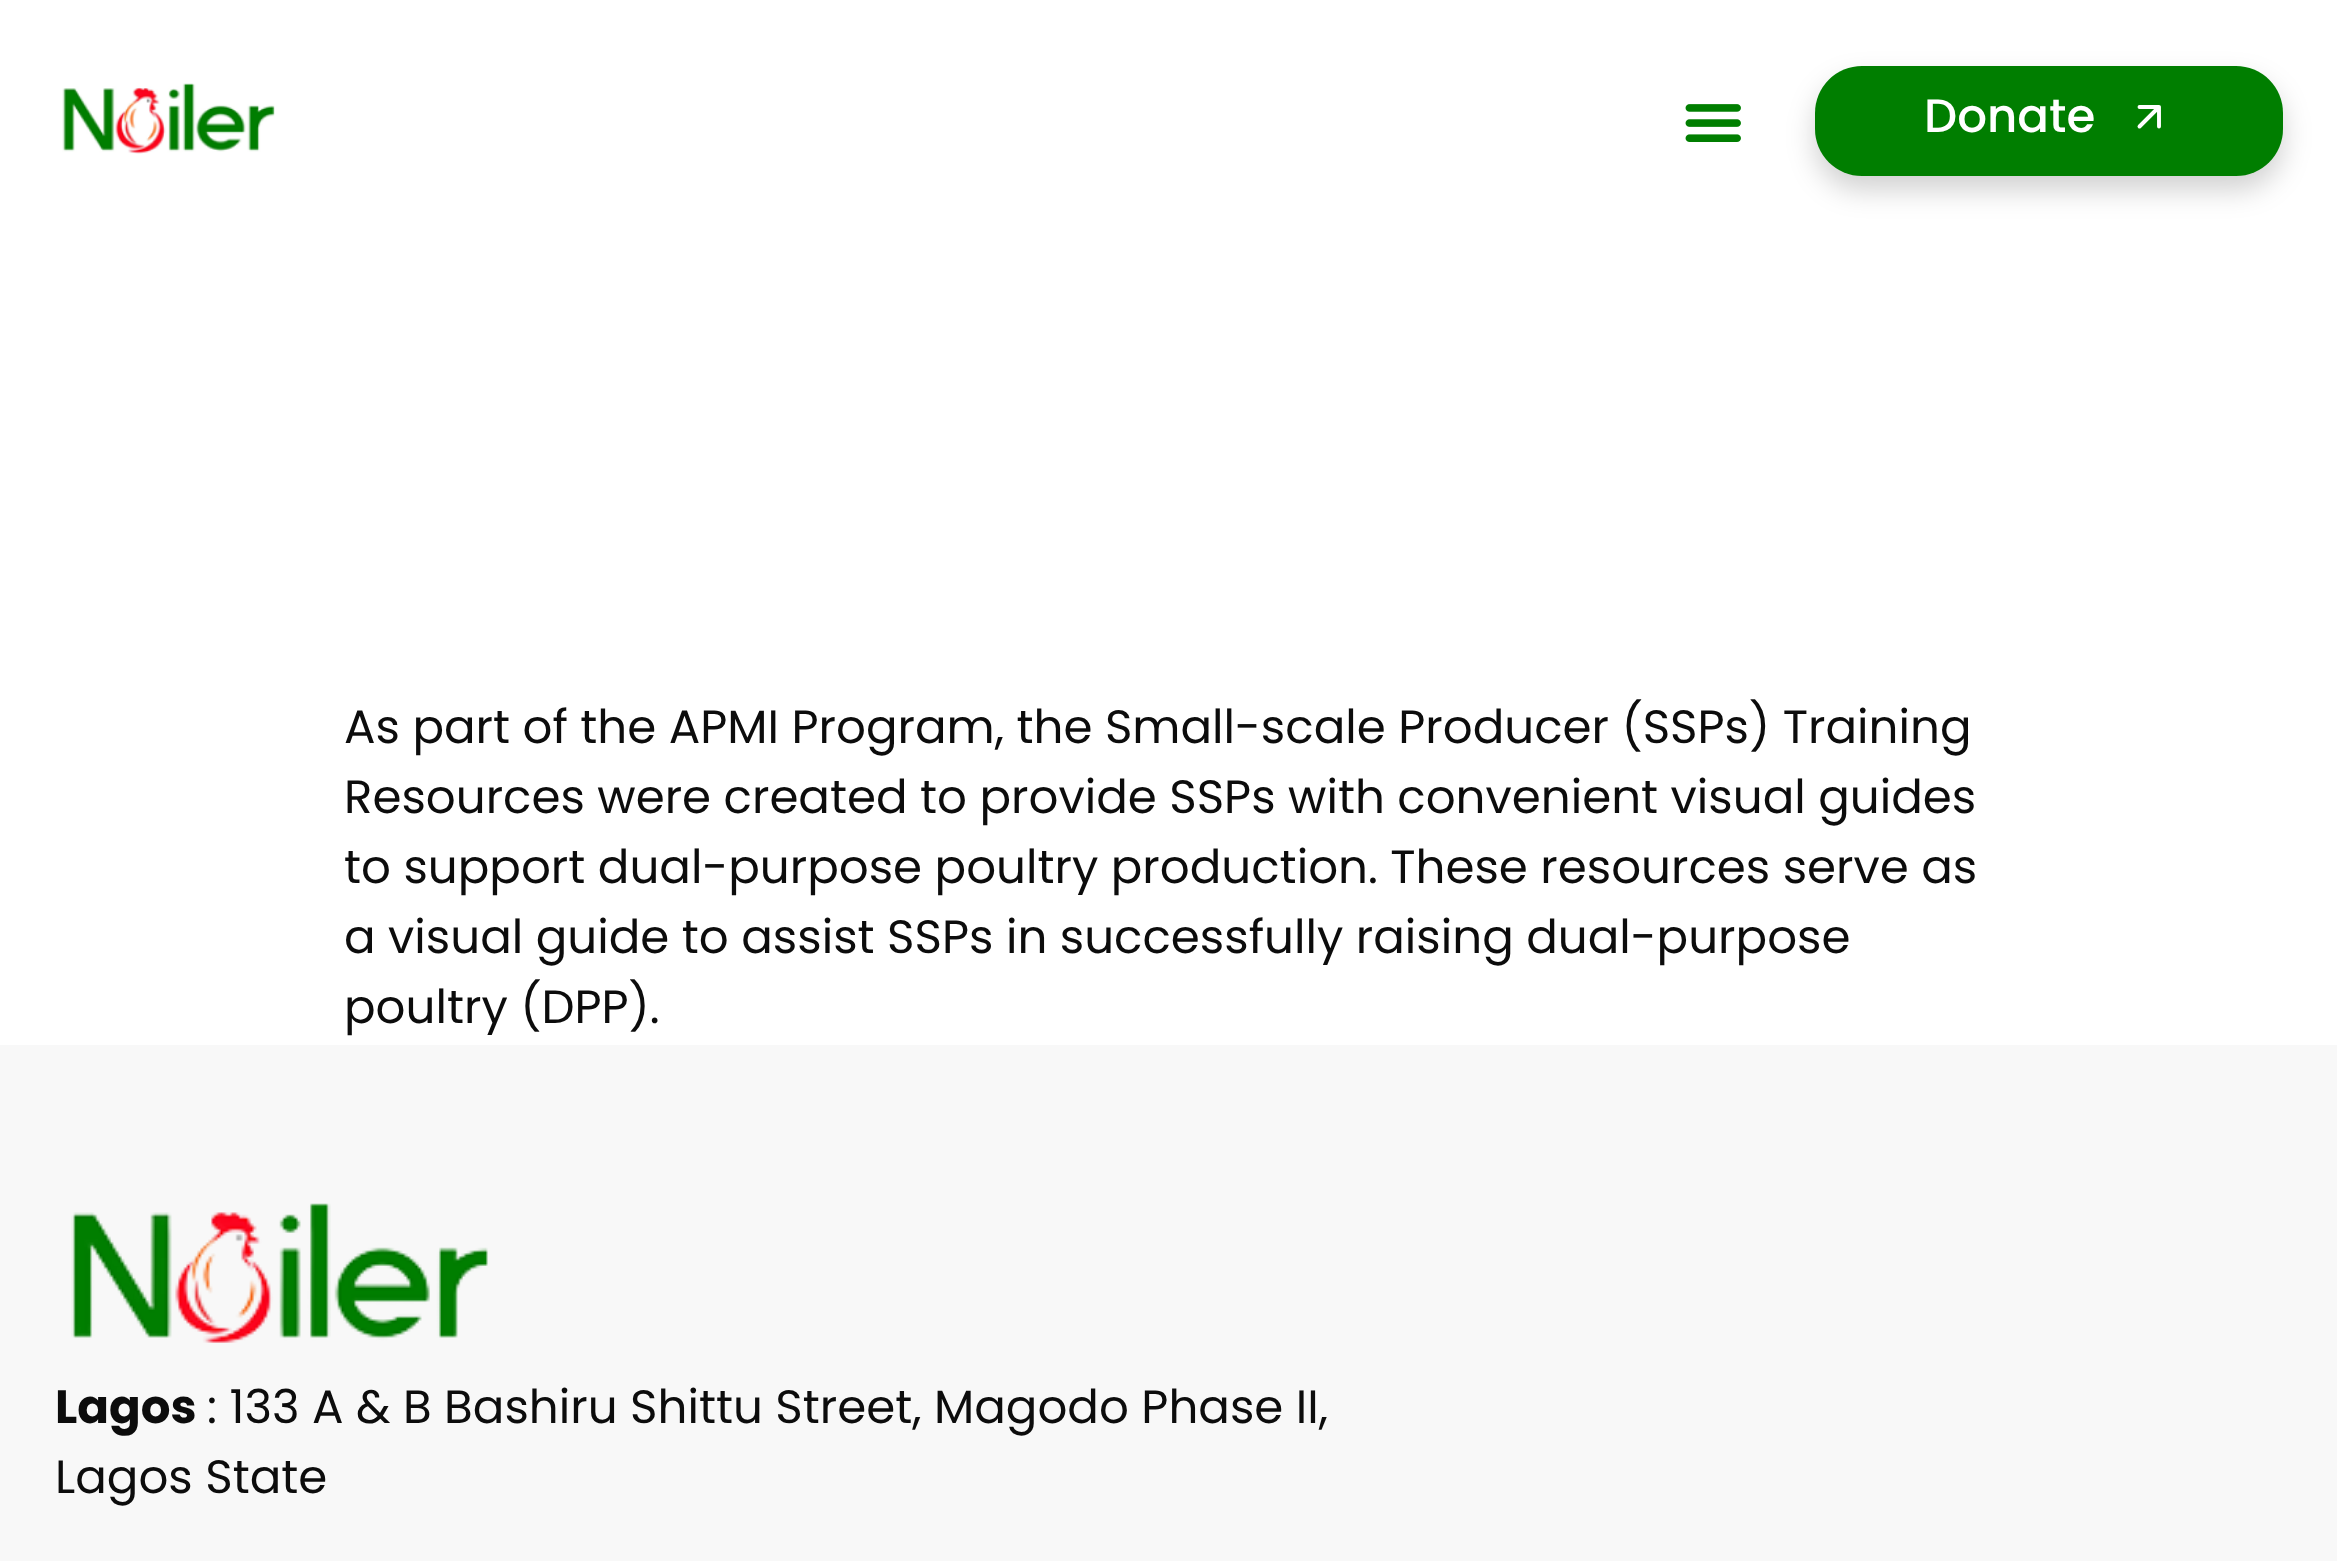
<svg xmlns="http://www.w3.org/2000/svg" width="2337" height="1561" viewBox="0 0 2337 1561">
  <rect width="100%" height="100%" fill="#fff"/>
  <image x="62" y="83" width="213" height="71" href="img/1.png"/>
  <image x="1685" y="104" width="56" height="38" href="img/2.png"/>
  <rect x="1815" y="80" width="468" height="110" rx="47" fill="#0000002e" filter="blur(14px)"/>
  <rect x="1815" y="66" width="468" height="110" rx="47" fill="#007e00"/>
  <path d="M2139.5 126.5L2159 107M2159 107H2139.5M2159 107V126.5" fill="none" stroke="#fff" stroke-width="3.9" stroke-linecap="round" stroke-linejoin="round"/>
  <path d="M0 1045h2337v516H0z" fill="#f8f8f8"/>
  <image x="71" y="1203" width="417" height="140" href="img/3.png"/>
  <text x="1924" y="132" font-family="Poppins" font-size="46.75" font-weight="500" fill="#fff">Donate</text>
  <g font-family="Poppins" font-size="46.75" fill="#0c0c0c">
    <text x="344" y="743">As part of the APMI Program, the Small-scale Producer (SSPs) Training</text>
    <text x="344" y="813">Resources were created to provide SSPs with convenient visual guides</text>
    <text x="344" y="883">to support dual-purpose poultry production. These resources serve as</text>
    <text x="344" y="953">a visual guide to assist SSPs in successfully raising dual-purpose</text>
    <text x="344" y="1023">poultry (DPP).</text>
  </g>
  <text x="55" y="1423" font-family="Poppins" font-size="46.75" font-weight="bold" fill="#0c0c0c">Lagos</text>
  <g font-family="Poppins" font-size="46.75" fill="#0c0c0c">
    <text x="207" y="1423">: 133 A &amp; B Bashiru Shittu Street, Magodo Phase II,</text>
    <text x="55" y="1493">Lagos State</text>
  </g>
</svg>
